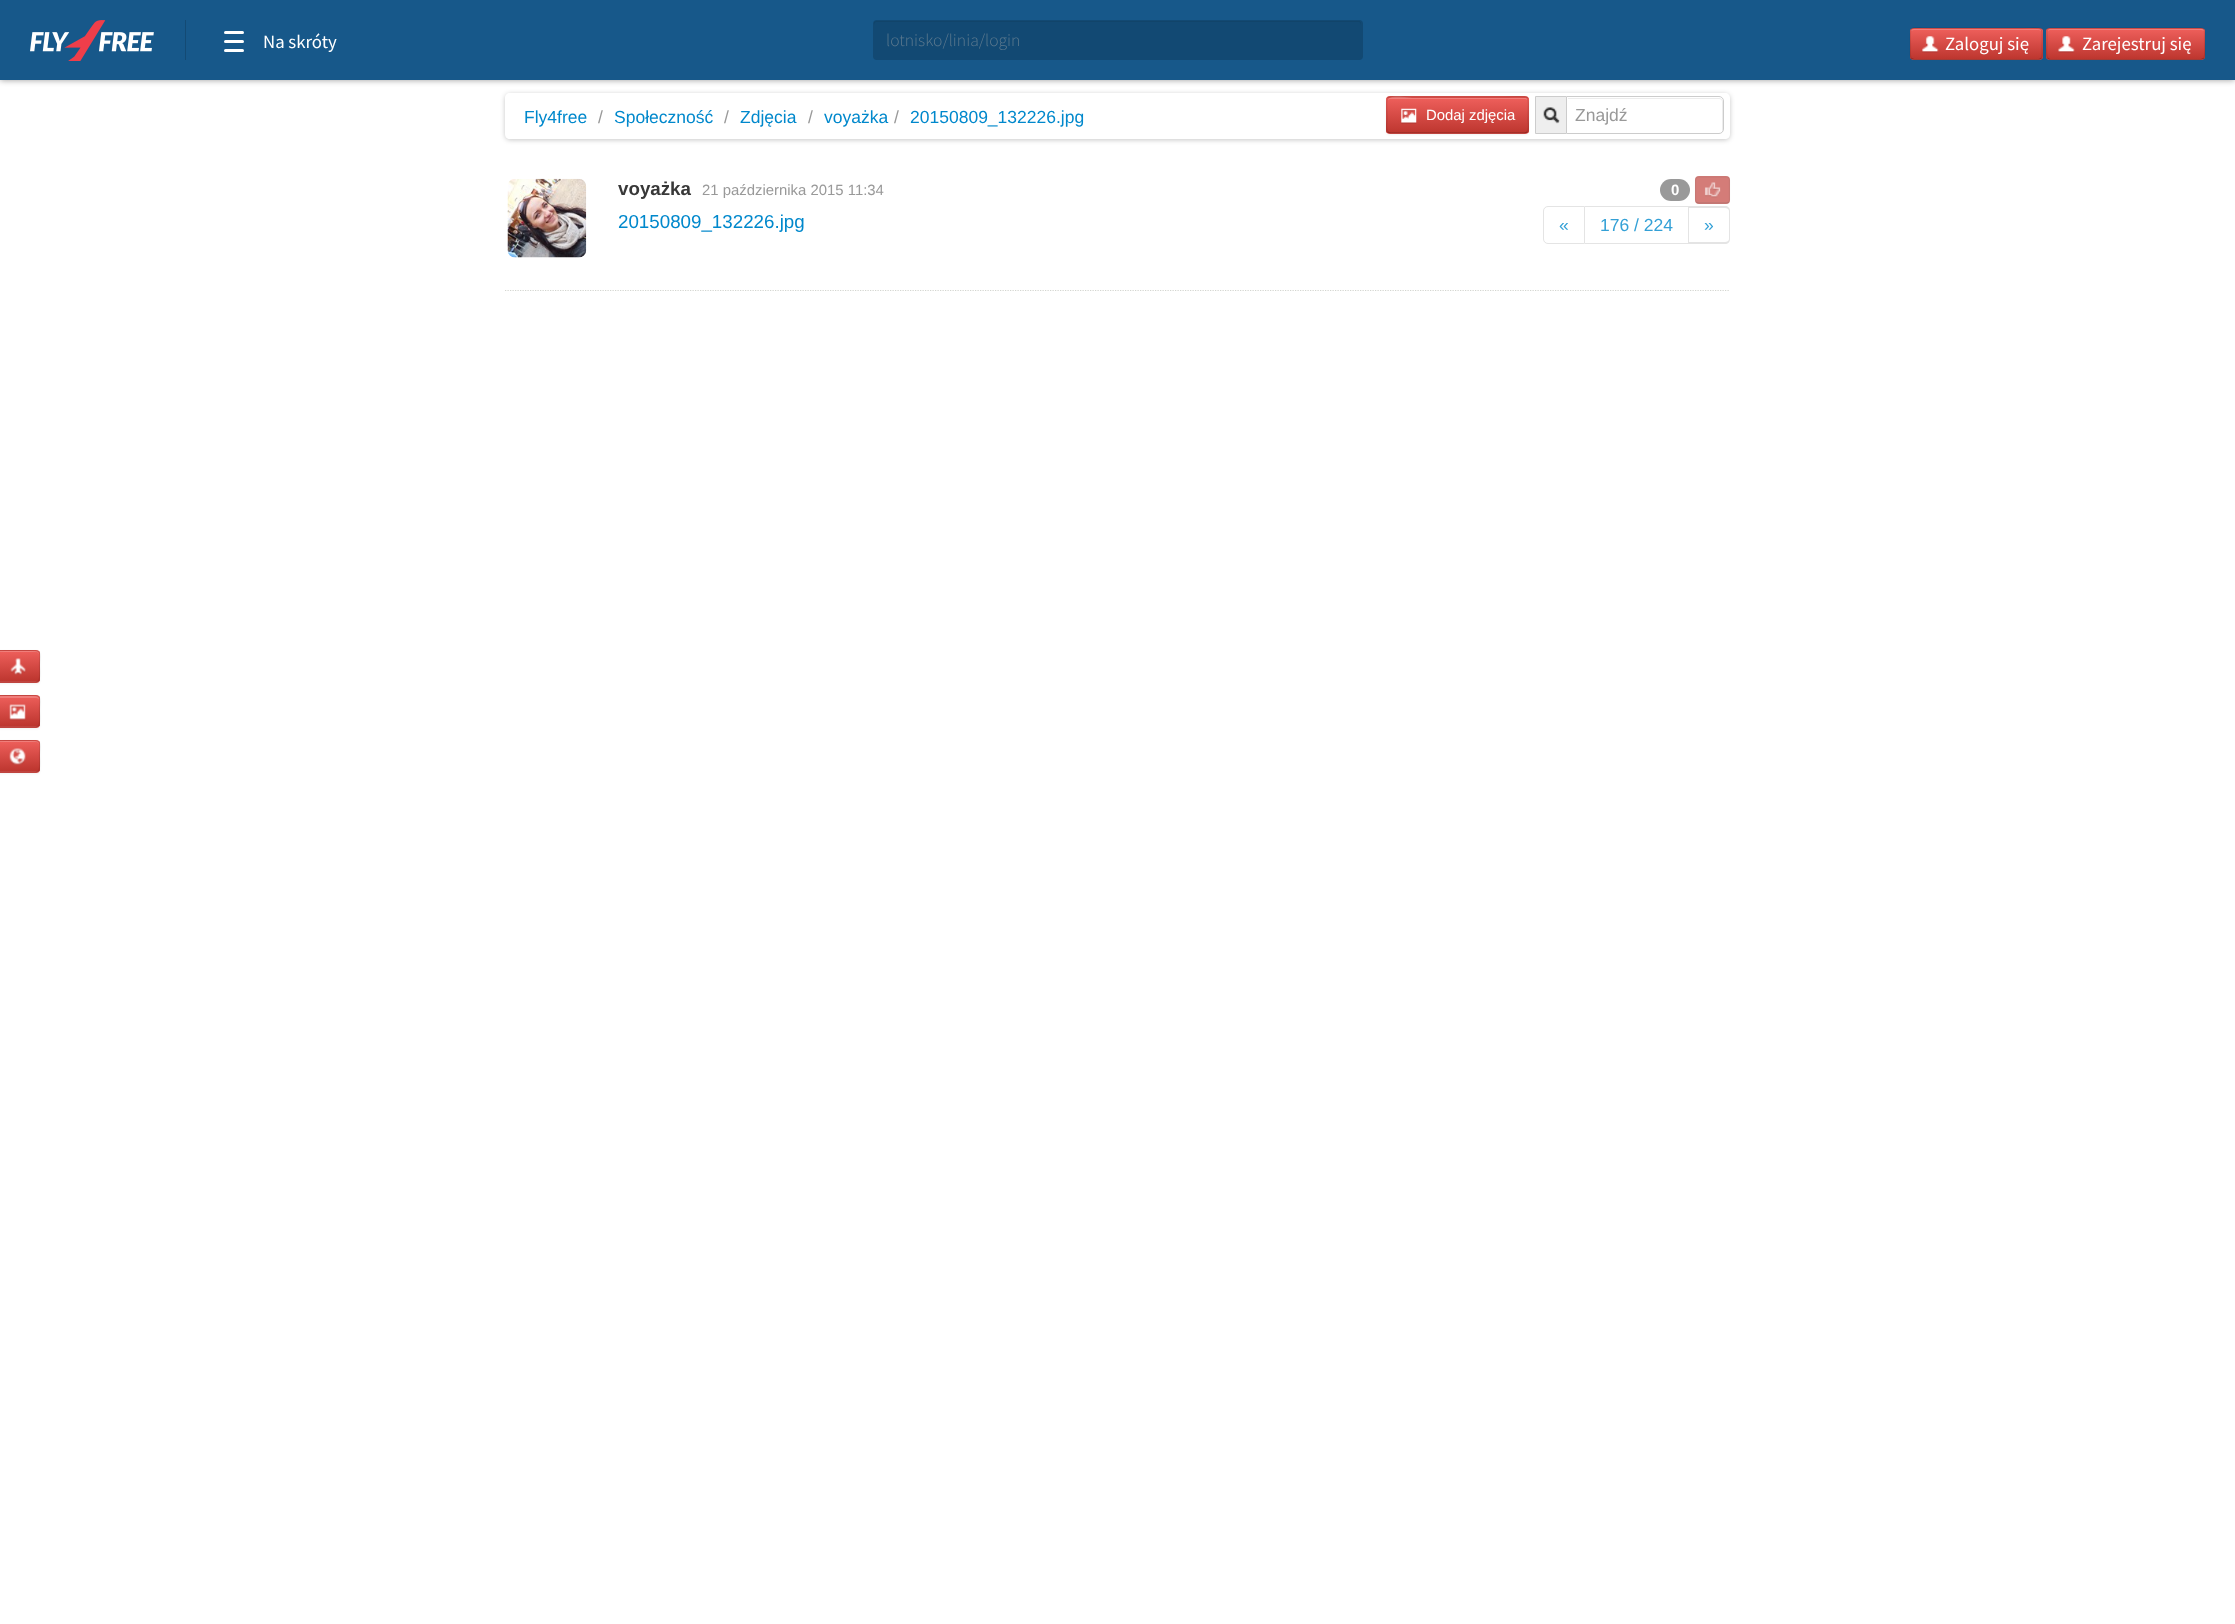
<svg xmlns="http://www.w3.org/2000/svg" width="2235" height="1624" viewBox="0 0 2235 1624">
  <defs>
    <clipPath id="clip1"><rect x="1910" y="28" width="133" height="32" rx="4"/></clipPath>
    <linearGradient id="g1" gradientUnits="userSpaceOnUse" x1="1976" y1="29" x2="1976" y2="59"><stop offset="0" stop-color="#ee5f5b"/><stop offset="1" stop-color="#bd362f"/></linearGradient>
    <clipPath id="clip2"><rect x="2046" y="28" width="159" height="32" rx="4"/></clipPath>
    <linearGradient id="g2" gradientUnits="userSpaceOnUse" x1="2126" y1="29" x2="2126" y2="59"><stop offset="0" stop-color="#ee5f5b"/><stop offset="1" stop-color="#bd362f"/></linearGradient>
    <clipPath id="clip3"><path d="M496 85H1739V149H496ZM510 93H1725C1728 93 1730 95 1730 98V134C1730 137 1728 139 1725 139H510C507 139 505 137 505 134V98C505 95 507 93 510 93Z" clip-rule="evenodd"/></clipPath>
    <clipPath id="clip4"><rect x="1386" y="96" width="143" height="38" rx="4"/></clipPath>
    <linearGradient id="g3" gradientUnits="userSpaceOnUse" x1="1458" y1="98" x2="1458" y2="133"><stop offset="0" stop-color="#ee5f5b"/><stop offset="1" stop-color="#bd362f"/></linearGradient>
    <clipPath id="clip5"><rect x="-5" y="650" width="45" height="33" rx="4"/></clipPath>
    <linearGradient id="g4" gradientUnits="userSpaceOnUse" x1="17" y1="651" x2="18" y2="681"><stop offset="0" stop-color="#ee5f5b"/><stop offset="1" stop-color="#bd362f"/></linearGradient>
    <clipPath id="clip6"><rect x="-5" y="695" width="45" height="33" rx="4"/></clipPath>
    <linearGradient id="g5" gradientUnits="userSpaceOnUse" x1="17" y1="696" x2="18" y2="726"><stop offset="0" stop-color="#ee5f5b"/><stop offset="1" stop-color="#bd362f"/></linearGradient>
    <clipPath id="clip7"><rect x="-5" y="740" width="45" height="33" rx="4"/></clipPath>
    <linearGradient id="g6" gradientUnits="userSpaceOnUse" x1="17" y1="741" x2="18" y2="771"><stop offset="0" stop-color="#ee5f5b"/><stop offset="1" stop-color="#bd362f"/></linearGradient>
  </defs>
  <rect width="100%" height="100%" fill="#fff"/>
  <path d="M0 0h2235v80H0z" fill="#00000066" filter="blur(3px)"/>
  <path d="M0 0h2235v80H0z" fill="#17588a"/>
  <image x="30" y="20" width="124" height="41" href="img/1.png"/>
  <path d="M185 20h1v40H185z" fill="#134a74"/>
  <rect x="224" y="49" width="20" height="3" rx="1.5" fill="#fff"/>
  <rect x="224" y="31" width="20" height="3" rx="1.5" fill="#fff"/>
  <rect x="224" y="40" width="20" height="3" rx="1.5" fill="#fff"/>
  <rect x="873" y="20" width="490" height="40" rx="4" fill="#124973"/>
  <path d="M876 22H1359C1360 22 1361 24 1361 25C1361 23 1361 21 1358 21H876L874 22V25C874 24 875 22 876 22Z" fill="#11446a"/>
  <rect x="1910" y="28" width="133" height="32" rx="4" fill="#da4f49"/>
  <g clip-path="url(#clip1)">
    <path d="M1910 29h133v30H1910z" fill="url(#g1)"/>
  </g>
  <path d="M1914 30H2039C2040 30 2041 31 2041 32C2041 30 2040 29 2038 29H1914C1912 29 1911 30 1911 32C1911 31 1912 30 1914 30Z" fill="#f17e7b"/>
  <path d="M2041 58.5L2039 59.5H1914L1911.5 58.5" fill="none" stroke="#00000040" stroke-width="1.2"/>
  <path d="M1911.5 58.5C1909.5 56.5 1910.5 50.5 1910.5 48C1910.5 23 1906.5 28 1934.5 28H2018C2046 28 2042 23 2042 48C2042 50.5 2043 56.5 2041 58.5" fill="none" stroke="#0000001a" stroke-width="1.2"/>
  <image x="1922" y="36" width="17" height="17" href="img/2.png"/>
  <rect x="2046" y="28" width="159" height="32" rx="4" fill="#da4f49"/>
  <g clip-path="url(#clip2)">
    <path d="M2046 29h159v30H2046z" fill="url(#g2)"/>
  </g>
  <path d="M2050 30H2201C2203 30 2204 31 2204 32C2204 30 2203 29 2202 29H2050C2049 29 2048 30 2048 32C2048 31 2049 30 2050 30Z" fill="#f17e7b"/>
  <path d="M2203.5 58.5L2201 59.5H2049.5L2048 58.5" fill="none" stroke="#00000040" stroke-width="1.2"/>
  <path d="M2048 58.5C2045.5 56.5 2047 46.5 2047 44V35.5C2047 33 2046 28 2050 28H2201C2205 28 2204.5 33 2204.5 35.5V44C2204.5 46.5 2205.5 56.5 2203.5 58.5" fill="none" stroke="#0000001a" stroke-width="1.2"/>
  <image x="2058" y="36" width="17" height="17" href="img/3.png"/>
  <g clip-path="url(#clip3)">
    <rect x="505" y="94" width="1225" height="46" rx="5" fill="#00000038" filter="blur(2.5px)"/>
  </g>
  <rect x="1386" y="98" width="143" height="37" rx="4" fill="#0000000d" filter="blur(1px)"/>
  <rect x="1386" y="96" width="143" height="38" rx="4" fill="#da4f49"/>
  <g clip-path="url(#clip4)">
    <path d="M1386 98h143v35H1386z" fill="url(#g3)"/>
  </g>
  <path d="M1390 99H1525C1526 99 1528 100 1528 101L1527 99L1526 98H1413C1410 98 1388 93 1388 101C1388 100 1389 99 1390 99Z" fill="#ffffff33"/>
  <path d="M1527 132L1525 133H1390L1388 132" fill="none" stroke="#00000040" stroke-width="1.2"/>
  <path d="M1388 132C1385.5 130 1387 122.5 1387 120C1387 91 1381.5 97 1412.5 97H1502.5C1533.5 97 1528 91 1528 120C1528 122.5 1529.5 130 1527 132" fill="none" stroke="#0000001a" stroke-width="1.2"/>
  <image x="1401" y="108" width="16" height="16" href="img/4.png"/>
  <path d="M1536 97h30v36H1536z" fill="#eee"/>
  <path d="M1535.5 96.5h32v37H1535.5z" fill="none" stroke="#ccc"/>
  <image x="1543" y="107" width="17" height="17" href="img/5.png"/>
  <path d="M1566 96H1719C1722 96 1724 98 1724 101V129C1724 132 1722 134 1719 134H1566Z" fill="#fff"/>
  <path d="M1568 99H1719C1721 99 1722 100 1722 102V132C1722 131 1723 130 1723 129V102C1723 100 1721 98 1719 98H1568Z" fill="#ececec"/>
  <path d="M1566.5 96.5H1719C1721.5 96.5 1723.5 98.5 1723.5 101V129C1723.5 131.5 1721.5 133.5 1719 133.5H1566.5Z" fill="none" stroke="#ccc"/>
  <path d="M505 290.5H1730" fill="none" stroke="#d3d5d0" stroke-width="1.2" stroke-dasharray="1.25 1.25"/>
  <image x="507" y="178" width="80" height="80" href="img/6.png"/>
  <rect x="1660" y="179" width="30" height="22" rx="11" fill="#999"/>
  <rect x="1695" y="176" width="35" height="28" rx="4" fill="#d47c78"/>
  <path d="M1728.5 202C1728 203 1727 203 1726 203H1699C1698 203 1697 203 1696.5 202" fill="none" stroke="#59595940" stroke-width="1.2"/>
  <path d="M1696.5 202C1696 201.5 1695.5 201 1695.5 200V180C1695.5 179 1696 178.5 1696.5 178C1697 177 1698 177 1699 177H1726C1727 177 1728 177 1728.5 178C1729 178.5 1729.5 179 1729.5 180V200C1729.5 201 1729 201.5 1728.5 202" fill="none" stroke="#5959591a" stroke-width="1.2"/>
  <image x="1704" y="182" width="17" height="16" href="img/7.png"/>
  <path d="M1548 206.5H1584.5V243.5H1548C1545.5 243.5 1543.5 241.5 1543.5 239V211C1543.5 208.5 1545.5 206.5 1548 206.5Z" fill="none" stroke="#e4e4e4"/>
  <path d="M1585 206h104v1H1585z" fill="#e4e4e4"/>
  <path d="M1688 206h1v38H1688z" fill="#e4e4e4"/>
  <path d="M1585 243h104v1H1585z" fill="#e4e4e4"/>
  <path d="M1689 206H1725C1728 206 1730 208 1730 211V239C1730 242 1728 244 1725 244H1689ZM1689 208H1725C1727 208 1729 209 1729 211V239C1729 241 1727 242 1725 242H1689Z" fill="#e4e4e4" fill-rule="evenodd"/>
  <rect x="-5" y="651" width="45" height="33" rx="4" fill="#0000000d" filter="blur(1px)"/>
  <rect x="-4" y="650" width="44" height="33" rx="4" fill="#da4f49"/>
  <g clip-path="url(#clip5)">
    <path d="M0 651h40v30H0z" fill="url(#g4)"/>
  </g>
  <path d="M-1 652H36C38 652 39 654 39 655C39 650 35 651 30 651H5C0 651-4 650-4 655C-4 654-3 652-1 652Z" fill="#ffffff33"/>
  <path d="M38.5 681L36 682H-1L-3.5 681" fill="none" stroke="#a43b37" stroke-width="1.2"/>
  <path d="M-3.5 681C-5.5 679-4.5 669-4.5 666C-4.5 652-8 650.5 5 650.5H30C43 650.5 39.5 652 39.5 666C39.5 669 40.5 679 38.5 681" fill="none" stroke="#0000001a" stroke-width="1.2"/>
  <image x="10" y="658" width="16" height="17" href="img/8.png"/>
  <rect x="-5" y="696" width="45" height="33" rx="4" fill="#0000000d" filter="blur(1px)"/>
  <rect x="-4" y="695" width="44" height="33" rx="4" fill="#da4f49"/>
  <g clip-path="url(#clip6)">
    <path d="M0 696h40v30H0z" fill="url(#g5)"/>
  </g>
  <path d="M-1 698H36C38 698 39 699 39 700C39 695 35 696 30 696H5C0 696-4 695-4 700C-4 699-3 698-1 698Z" fill="#ffffff33"/>
  <path d="M38.5 726L36 727H-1L-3.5 726" fill="none" stroke="#a43b37" stroke-width="1.2"/>
  <path d="M-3.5 726C-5.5 724-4.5 714-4.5 711C-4.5 697-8 695.5 5 695.5H30C43 695.5 39.5 697 39.5 711C39.5 714 40.5 724 38.5 726" fill="none" stroke="#0000001a" stroke-width="1.2"/>
  <image x="9" y="704" width="17" height="17" href="img/9.png"/>
  <rect x="-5" y="741" width="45" height="33" rx="4" fill="#0000000d" filter="blur(1px)"/>
  <rect x="-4" y="740" width="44" height="33" rx="4" fill="#da4f49"/>
  <g clip-path="url(#clip7)">
    <path d="M0 741h40v30H0z" fill="url(#g6)"/>
  </g>
  <path d="M-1 742H36C38 742 39 744 39 745C39 740 35 741 30 741H5C0 741-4 740-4 745C-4 744-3 742-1 742Z" fill="#ffffff33"/>
  <path d="M38.5 771L36 772H-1L-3.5 771" fill="none" stroke="#a43b37" stroke-width="1.2"/>
  <path d="M-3.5 771C-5.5 769-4.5 759-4.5 756C-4.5 742-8 740.5 5 740.5H30C43 740.5 39.5 742 39.5 756C39.5 759 40.5 769 38.5 771" fill="none" stroke="#0000001a" stroke-width="1.2"/>
  <image x="9" y="748" width="17" height="17" href="img/10.png"/>
  <text x="263" y="48" font-family="Source Sans Pro" font-size="18.75" fill="#fff">Na skróty</text>
  <text x="886" y="46" font-family="Source Sans Pro" font-size="17.5" font-weight="300" fill="#5e7a8f">lotnisko/linia/login</text>
  <g font-family="Source Sans Pro" font-size="18.75" fill="#fff">
    <text x="1945" y="50">Zaloguj się</text>
    <text x="2082" y="50">Zarejestruj się</text>
  </g>
  <text x="524" y="123" font-family="Liberation Sans" font-size="17.5" fill="#08c">Fly4free</text>
  <text x="598" y="123" font-family="Liberation Sans" font-size="17.5" fill="#999">/</text>
  <text x="614" y="123" font-family="Liberation Sans" font-size="17.5" fill="#08c">Społeczność</text>
  <text x="724" y="123" font-family="Liberation Sans" font-size="17.5" fill="#999">/</text>
  <text x="740" y="123" font-family="Liberation Sans" font-size="17.5" fill="#08c">Zdjęcia</text>
  <text x="808" y="123" font-family="Liberation Sans" font-size="17.5" fill="#999">/</text>
  <text x="824" y="123" font-family="Liberation Sans" font-size="17.5" fill="#08c">voyażka</text>
  <text x="894" y="123" font-family="Liberation Sans" font-size="17.5" fill="#999">/</text>
  <text x="910" y="123" font-family="Liberation Sans" font-size="17.5" fill="#08c">20150809_132226.jpg</text>
  <text x="1426" y="120" font-family="Liberation Sans" font-size="14.9" fill="#fff">Dodaj zdjęcia</text>
  <text x="1575" y="121" font-family="Liberation Sans" font-size="17.5" fill="#999">Znajdź</text>
  <text x="618" y="195" font-family="Liberation Sans" font-size="18.75" font-weight="bold" fill="#383838">voyażka</text>
  <text x="702" y="195" font-family="Liberation Sans" font-size="14.9" fill="#999">21 października 2015 11:34</text>
  <text x="1671" y="195" font-family="Liberation Sans" font-size="15" font-weight="bold" fill="#fff">0</text>
  <text x="618" y="228" font-family="Liberation Sans" font-size="18.75" fill="#08c">20150809_132226.jpg</text>
  <g font-family="Liberation Sans" font-size="17.5" fill="#33a0d6">
    <text x="1559" y="231">«</text>
    <text x="1600" y="231">176 / 224</text>
    <text x="1704" y="231">»</text>
  </g>
</svg>
